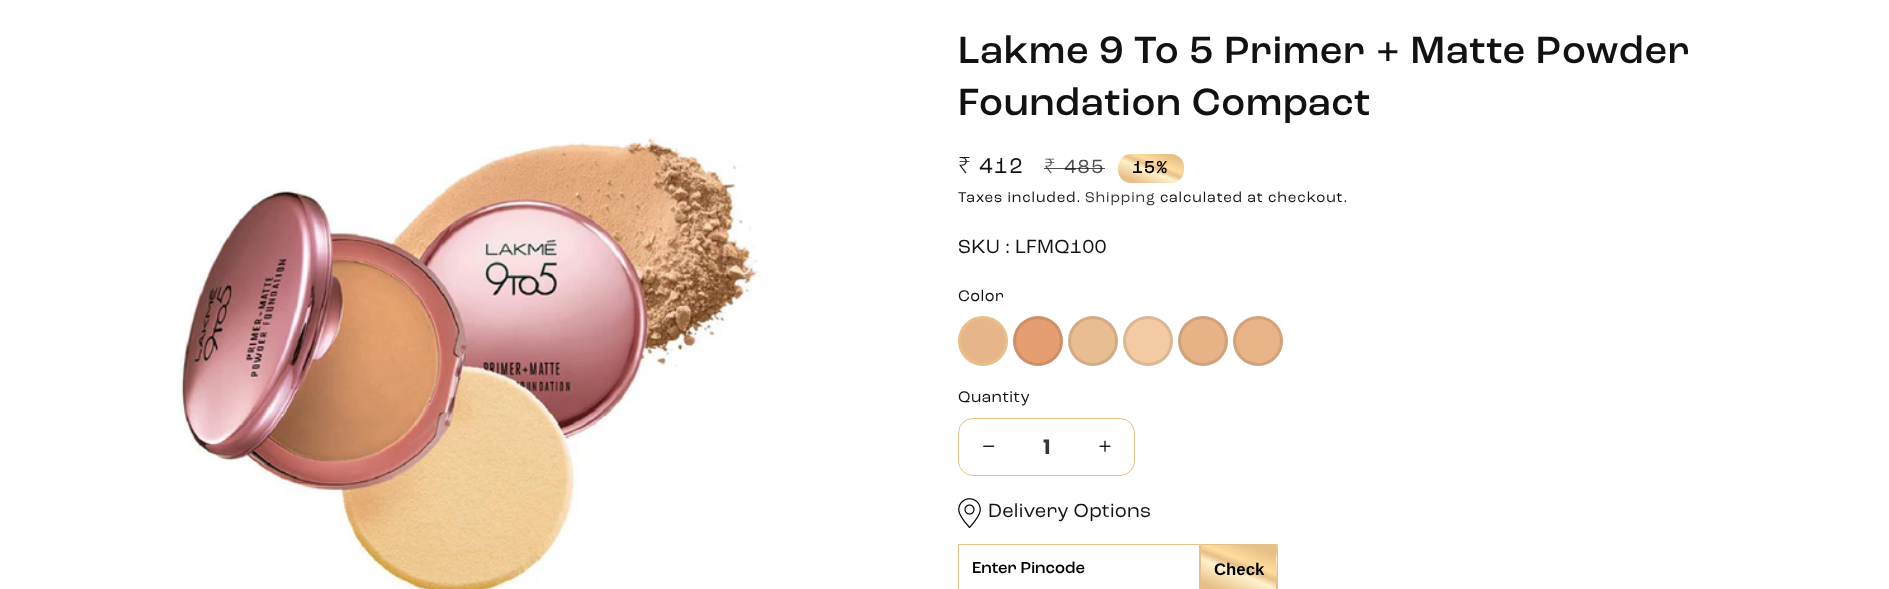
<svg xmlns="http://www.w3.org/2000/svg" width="1889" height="589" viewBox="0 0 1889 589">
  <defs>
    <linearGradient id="g1" gradientUnits="userSpaceOnUse" x1="1141" y1="192" x2="1160" y2="144"><stop offset="0.14" stop-color="#e7bf88"/><stop offset="0.44" stop-color="#fff2cd"/><stop offset="0.54" stop-color="#e7bf88"/><stop offset="0.63" stop-color="#ffdd9d"/><stop offset="0.86" stop-color="#e7bf88"/></linearGradient>
    <linearGradient id="g2" gradientUnits="userSpaceOnUse" x1="1225" y1="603" x2="1252" y2="535"><stop offset="0.14" stop-color="#e7bf88"/><stop offset="0.44" stop-color="#fff2cd"/><stop offset="0.54" stop-color="#e7bf88"/><stop offset="0.63" stop-color="#ffdd9d"/><stop offset="0.86" stop-color="#e7bf88"/></linearGradient>
    <linearGradient id="g3" gradientUnits="userSpaceOnUse" x1="1300" y1="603" x2="1327" y2="535"><stop offset="0.14" stop-color="#e7bf88"/><stop offset="0.44" stop-color="#fff2cd"/><stop offset="0.54" stop-color="#e7bf88"/><stop offset="0.63" stop-color="#ffdd9d"/><stop offset="0.86" stop-color="#e7bf88"/></linearGradient>
  </defs>
  <rect width="100%" height="100%" fill="#fff"/>
  <image x="179" y="137" width="583" height="452" href="img/1.png"/>
  <rect x="1118" y="154" width="66" height="29" rx="13" fill="url(#g1)"/>
  <circle cx="983" cy="341" r="23.5" fill="#e7b58a" stroke="#e7bf88" stroke-width="3"/>
  <circle cx="1038" cy="341" r="25" fill="#e49e71"/>
  <circle cx="1038" cy="341" r="23.5" fill="none" stroke="#1212121a" stroke-width="3"/>
  <circle cx="1093" cy="341" r="25" fill="#e8bd92"/>
  <circle cx="1093" cy="341" r="23.5" fill="none" stroke="#1212121a" stroke-width="3"/>
  <circle cx="1148" cy="341" r="25" fill="#f3caa3"/>
  <circle cx="1148" cy="341" r="23.5" fill="none" stroke="#1212121a" stroke-width="3"/>
  <circle cx="1203" cy="341" r="25" fill="#e6b286"/>
  <circle cx="1203" cy="341" r="23.5" fill="none" stroke="#1212121a" stroke-width="3"/>
  <circle cx="1258" cy="341" r="25" fill="#e7b387"/>
  <circle cx="1258" cy="341" r="23.5" fill="none" stroke="#1212121a" stroke-width="3"/>
  <rect x="958.5" y="418.5" width="176" height="57" rx="14.5" fill="none" stroke="#e7bf88"/>
  <image x="983" y="445" width="12" height="2" href="img/2.png"/>
  <image x="1099" y="440" width="12" height="12" href="img/3.png"/>
  <image x="958" y="498" width="23" height="31" href="img/4.png"/>
  <path d="M958.5 544.5h241v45H958.5z" fill="none" stroke="#e7bf88"/>
  <path d="M1201 545h75v44H1201z" fill="url(#g2)"/>
  <path d="M1276 545h1v44H1276z" fill="url(#g3)"/>
  <path d="M1200.5 544.5h77v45H1200.5z" fill="none" stroke="#e7bf88"/>
  <g font-family="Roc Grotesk" font-size="40" font-weight="500" letter-spacing="0.75" fill="#121212">
    <text x="958" y="63">Lakme 9 To 5 Primer + Matte Powder</text>
    <text x="958" y="115">Foundation Compact</text>
  </g>
  <text x="958" y="173" font-family="Noto Sans" font-size="22.5" font-weight="300" letter-spacing="1.5" fill="#121212">₹</text>
  <text x="979" y="173" font-family="Roc Grotesk" font-size="22.5" letter-spacing="1.5" fill="#121212">412</text>
  <text x="1044" y="173" font-family="Noto Sans" font-size="20" font-weight="300" letter-spacing="1.5" fill="#4d4d4d">₹</text>
  <text x="1064" y="173" font-family="Roc Grotesk" font-size="20" letter-spacing="1.5" fill="#4d4d4d">485</text>
  <path d="M1044 168h61v1H1044z" fill="#121212bf"/>
  <text x="1132" y="173" font-family="Roc Grotesk" font-size="17.5" font-weight="bold" letter-spacing="1.5" fill="#000">15%</text>
  <text x="958" y="202" font-family="Roc Grotesk" font-size="15" letter-spacing="0.9" fill="#121212">Taxes included.</text>
  <text x="1085" y="202" font-family="Roc Grotesk" font-size="15" letter-spacing="0.9" fill="#363636">Shipping</text>
  <text x="1160" y="202" font-family="Roc Grotesk" font-size="15" letter-spacing="0.9" fill="#121212">calculated at checkout.</text>
  <text x="958" y="253" font-family="Roc Grotesk" font-size="20" letter-spacing="0.25" fill="#121212">SKU : LFMQ100</text>
  <g font-family="Roc Grotesk" font-size="16.25" letter-spacing="0.5" fill="#121212">
    <text x="958" y="301">Color</text>
    <text x="958" y="402">Quantity</text>
  </g>
  <text x="1043" y="454" font-family="Poppins" font-size="20" font-weight="bold" fill="#363636">1</text>
  <text x="988" y="517" font-family="Roc Grotesk" font-size="20" letter-spacing="0.25" fill="#121212">Delivery Options</text>
  <text x="972" y="573" font-family="Roc Grotesk" font-size="16.75" font-weight="500" fill="#000">Enter Pincode</text>
  <text x="1214" y="575" font-family="Liberation Sans" font-size="16.75" font-weight="bold" fill="#000">Check</text>
</svg>
